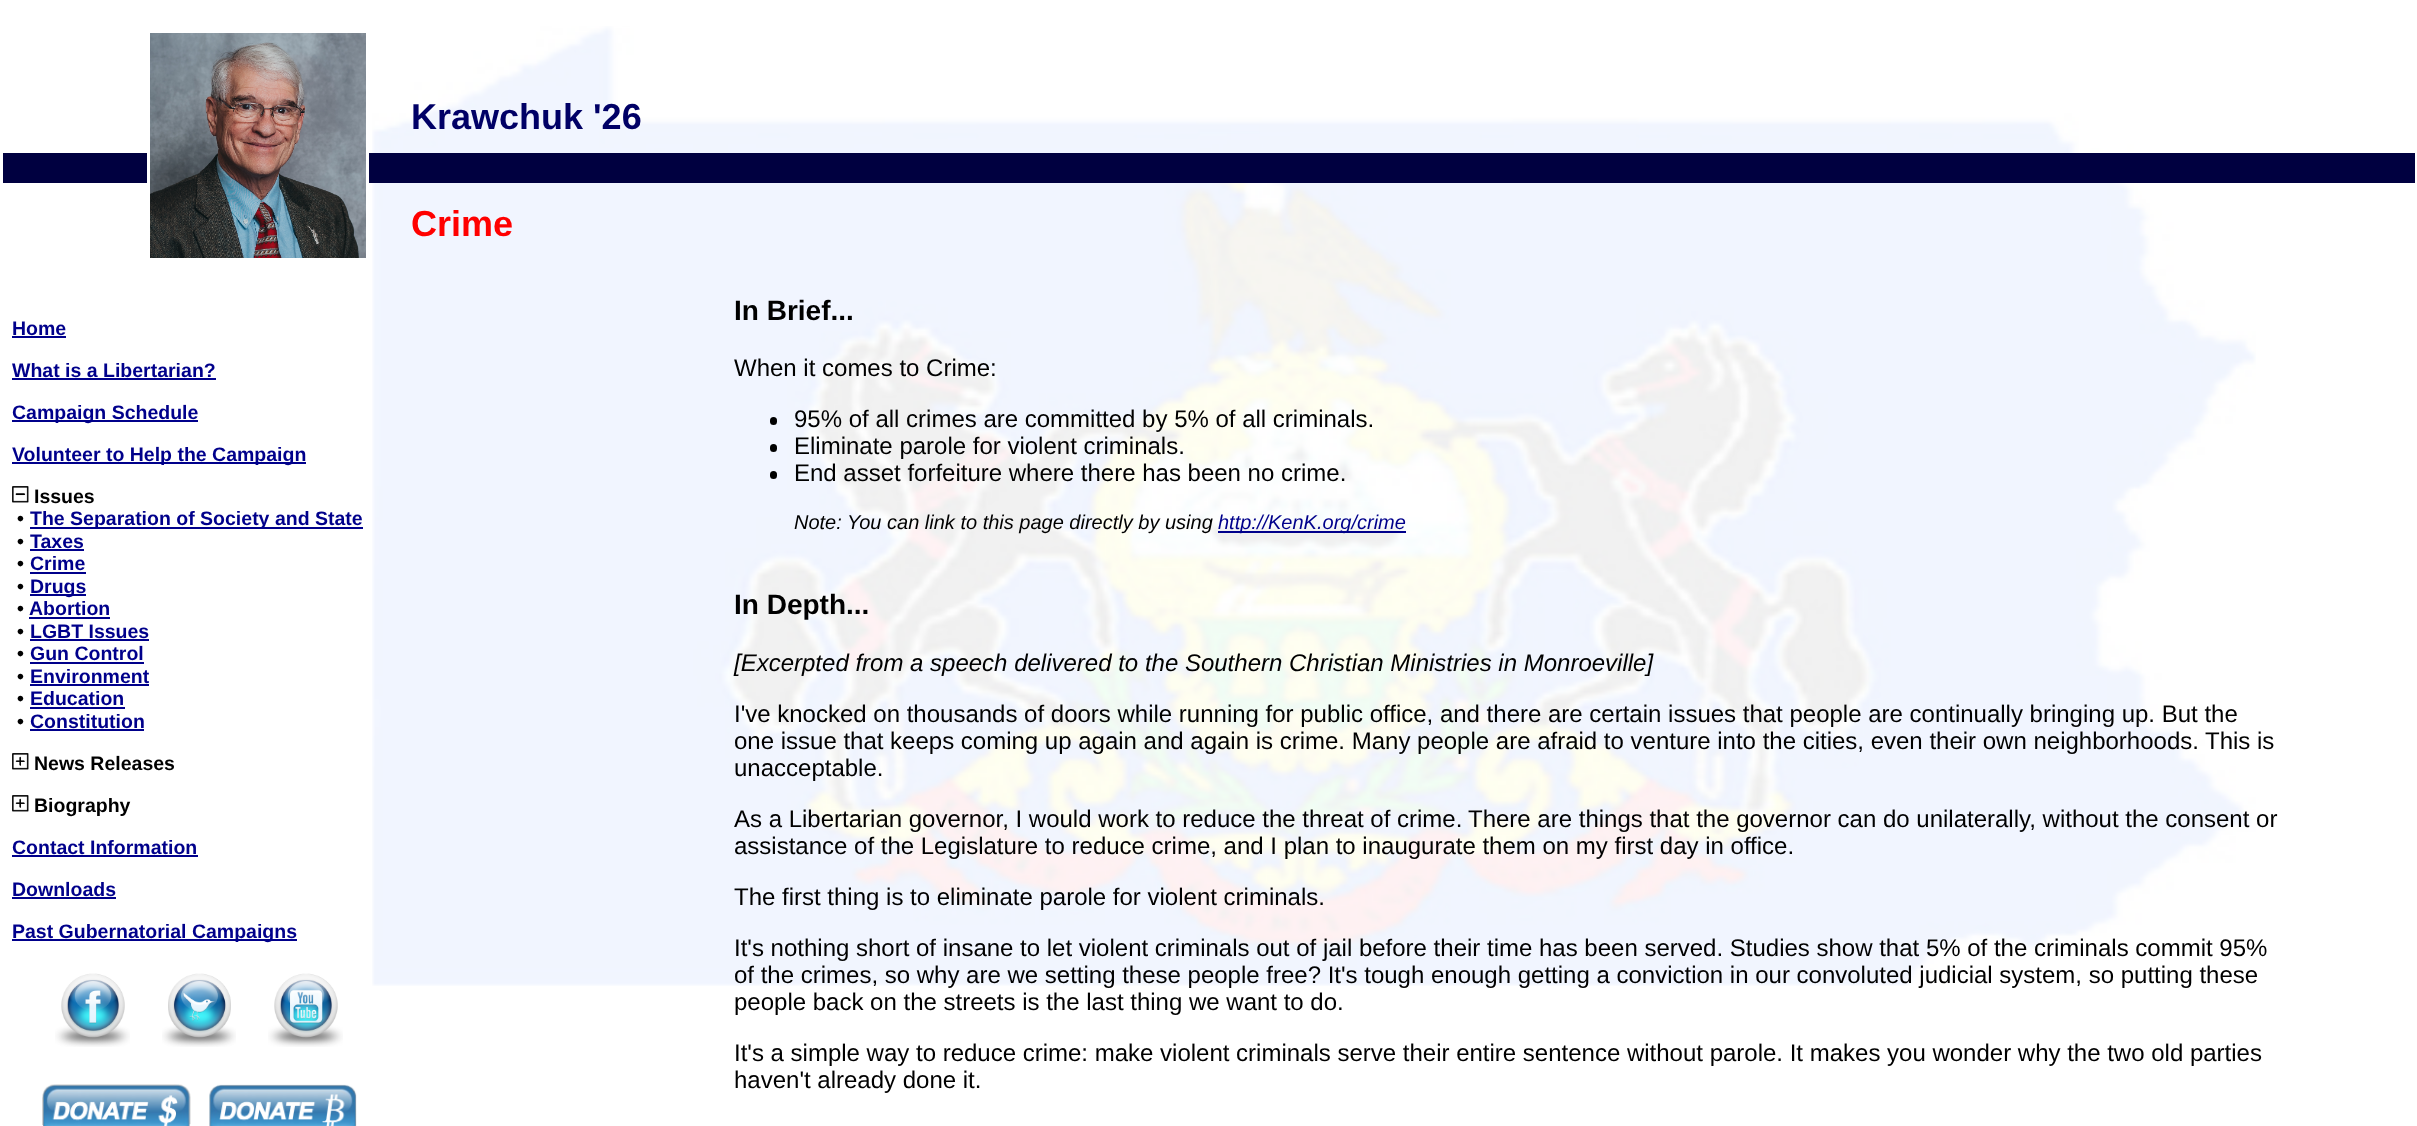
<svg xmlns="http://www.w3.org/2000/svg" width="2417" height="1126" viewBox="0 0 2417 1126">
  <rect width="100%" height="100%" fill="#fff"/>
  <image x="372" y="26" width="1884" height="960" href="img/1.png"/>
  <path d="M3 153h144v30H3z" fill="#000040"/>
  <image x="150" y="33" width="216" height="225" href="img/2.png"/>
  <path d="M369 153h2046v30H369z" fill="#000040"/>
  <path d="M12 336h54v2H12z" fill="#00008b"/>
  <path d="M12 378h204v2H12z" fill="#00008b"/>
  <path d="M12 420h186v2H12z" fill="#00008b"/>
  <path d="M12 462h294v2H12z" fill="#00008b"/>
  <image x="12" y="486" width="17" height="17" href="img/3.png"/>
  <path d="M30 527h333v2H30z" fill="#00008b"/>
  <path d="M30 549h54v2H30z" fill="#00008b"/>
  <path d="M30 572h56v2H30z" fill="#00008b"/>
  <path d="M30 594h56v2H30z" fill="#00008b"/>
  <path d="M29 617h81v2H29z" fill="#00008b"/>
  <path d="M30 639h119v2H30z" fill="#00008b"/>
  <path d="M30 662h114v2H30z" fill="#00008b"/>
  <path d="M30 684h119v2H30z" fill="#00008b"/>
  <path d="M30 707h95v2H30z" fill="#00008b"/>
  <path d="M30 729h114v2H30z" fill="#00008b"/>
  <image x="12" y="753" width="17" height="17" href="img/4.png"/>
  <image x="12" y="795" width="17" height="17" href="img/4.png"/>
  <path d="M12 855h186v2H12z" fill="#00008b"/>
  <path d="M12 897h104v2H12z" fill="#00008b"/>
  <path d="M12 939h285v2H12z" fill="#00008b"/>
  <image x="55" y="973" width="75" height="74" href="img/5.png"/>
  <image x="162" y="973" width="74" height="74" href="img/6.png"/>
  <image x="268" y="973" width="75" height="74" href="img/7.png"/>
  <image x="42" y="1084" width="149" height="42" href="img/8.png"/>
  <image x="209" y="1084" width="148" height="42" href="img/9.png"/>
  <rect x="770" y="417" width="7" height="8" rx="3.5" fill="#000"/>
  <rect x="770" y="444" width="7" height="8" rx="3.5" fill="#000"/>
  <rect x="770" y="471" width="7" height="8" rx="3.5" fill="#000"/>
  <path d="M1218 531h188v2H1218z" fill="#00008b"/>
  <text x="411" y="129" font-family="Liberation Sans" font-size="36" font-weight="bold" fill="#006">Krawchuk '26</text>
  <text x="411" y="236" font-family="Liberation Sans" font-size="36" font-weight="bold" fill="#f00">Crime</text>
  <g font-family="Liberation Sans" font-size="19.5" font-weight="bold" fill="#00008b">
    <text x="12" y="335">Home</text>
    <text x="12" y="377">What is a Libertarian?</text>
    <text x="12" y="419">Campaign Schedule</text>
    <text x="12" y="461">Volunteer to Help the Campaign</text>
  </g>
  <g font-family="Liberation Sans" font-size="19.5" font-weight="bold" fill="#000">
    <text x="34" y="503">Issues</text>
    <text x="17" y="525">•</text>
  </g>
  <text x="30" y="525" font-family="Liberation Sans" font-size="19.5" font-weight="bold" fill="#00008b">The Separation of Society and State</text>
  <text x="17" y="548" font-family="Liberation Sans" font-size="19.5" font-weight="bold" fill="#000">•</text>
  <text x="30" y="548" font-family="Liberation Sans" font-size="19.5" font-weight="bold" fill="#00008b">Taxes</text>
  <text x="17" y="570" font-family="Liberation Sans" font-size="19.5" font-weight="bold" fill="#000">•</text>
  <text x="30" y="570" font-family="Liberation Sans" font-size="19.5" font-weight="bold" fill="#00008b">Crime</text>
  <text x="17" y="593" font-family="Liberation Sans" font-size="19.5" font-weight="bold" fill="#000">•</text>
  <text x="30" y="593" font-family="Liberation Sans" font-size="19.5" font-weight="bold" fill="#00008b">Drugs</text>
  <text x="17" y="615" font-family="Liberation Sans" font-size="19.5" font-weight="bold" fill="#000">•</text>
  <text x="29" y="615" font-family="Liberation Sans" font-size="19.5" font-weight="bold" fill="#00008b">Abortion</text>
  <text x="17" y="638" font-family="Liberation Sans" font-size="19.5" font-weight="bold" fill="#000">•</text>
  <text x="30" y="638" font-family="Liberation Sans" font-size="19.5" font-weight="bold" fill="#00008b">LGBT Issues</text>
  <text x="17" y="660" font-family="Liberation Sans" font-size="19.5" font-weight="bold" fill="#000">•</text>
  <text x="30" y="660" font-family="Liberation Sans" font-size="19.5" font-weight="bold" fill="#00008b">Gun Control</text>
  <text x="17" y="683" font-family="Liberation Sans" font-size="19.5" font-weight="bold" fill="#000">•</text>
  <text x="30" y="683" font-family="Liberation Sans" font-size="19.5" font-weight="bold" fill="#00008b">Environment</text>
  <text x="17" y="705" font-family="Liberation Sans" font-size="19.5" font-weight="bold" fill="#000">•</text>
  <text x="30" y="705" font-family="Liberation Sans" font-size="19.5" font-weight="bold" fill="#00008b">Education</text>
  <text x="17" y="728" font-family="Liberation Sans" font-size="19.5" font-weight="bold" fill="#000">•</text>
  <text x="30" y="728" font-family="Liberation Sans" font-size="19.5" font-weight="bold" fill="#00008b">Constitution</text>
  <g font-family="Liberation Sans" font-size="19.5" font-weight="bold" fill="#000">
    <text x="34" y="770">News Releases</text>
    <text x="34" y="812">Biography</text>
  </g>
  <g font-family="Liberation Sans" font-size="19.5" font-weight="bold" fill="#00008b">
    <text x="12" y="854">Contact Information</text>
    <text x="12" y="896">Downloads</text>
    <text x="12" y="938">Past Gubernatorial Campaigns</text>
  </g>
  <text x="734" y="320" font-family="Liberation Sans" font-size="28" font-weight="bold" fill="#000">In Brief...</text>
  <g font-family="Liberation Sans" font-size="24" fill="#000">
    <text x="734" y="376">When it comes to Crime:</text>
    <text x="794" y="427">95% of all crimes are committed by 5% of all criminals.</text>
    <text x="794" y="454">Eliminate parole for violent criminals.</text>
    <text x="794" y="481">End asset forfeiture where there has been no crime.</text>
  </g>
  <text x="794" y="529" font-family="Liberation Sans" font-size="20" font-style="italic" fill="#000">Note: You can link to this page directly by using</text>
  <text x="1218" y="529" font-family="Liberation Sans" font-size="20" font-style="italic" fill="#00008b">http://KenK.org/crime</text>
  <text x="734" y="614" font-family="Liberation Sans" font-size="28" font-weight="bold" fill="#000">In Depth...</text>
  <text x="734" y="671" font-family="Liberation Sans" font-size="24" font-style="italic" fill="#000">[Excerpted from a speech delivered to the Southern Christian Ministries in Monroeville]</text>
  <g font-family="Liberation Sans" font-size="24" fill="#000">
    <text x="734" y="722">I've knocked on thousands of doors while running for public office, and there are certain issues that people are continually bringing up. But the</text>
    <text x="734" y="749">one issue that keeps coming up again and again is crime. Many people are afraid to venture into the cities, even their own neighborhoods.</text>
    <text x="2205" y="749">This is</text>
    <text x="734" y="776">unacceptable.</text>
    <text x="734" y="827">As a Libertarian governor, I would work to reduce the threat of crime.</text>
    <text x="1468" y="827">There are things that the governor can do unilaterally, without the consent or</text>
    <text x="734" y="854">assistance of the Legislature to reduce crime, and I plan to inaugurate them on my first day in office.</text>
    <text x="734" y="905">The first thing is to eliminate parole for violent criminals.</text>
    <text x="734" y="956">It's nothing short of insane to let violent criminals out of jail before their time has been served. Studies show that 5% of the criminals commit 95%</text>
    <text x="734" y="983">of the crimes, so why are we setting these people free? It's tough enough getting a conviction in our convoluted judicial system, so putting these</text>
    <text x="734" y="1010">people back on the streets is the last thing we want to do.</text>
    <text x="734" y="1061">It's a simple way to reduce crime: make violent criminals serve their entire sentence without parole. It makes you wonder why the two old parties</text>
    <text x="734" y="1088">haven't already done it.</text>
  </g>
</svg>
